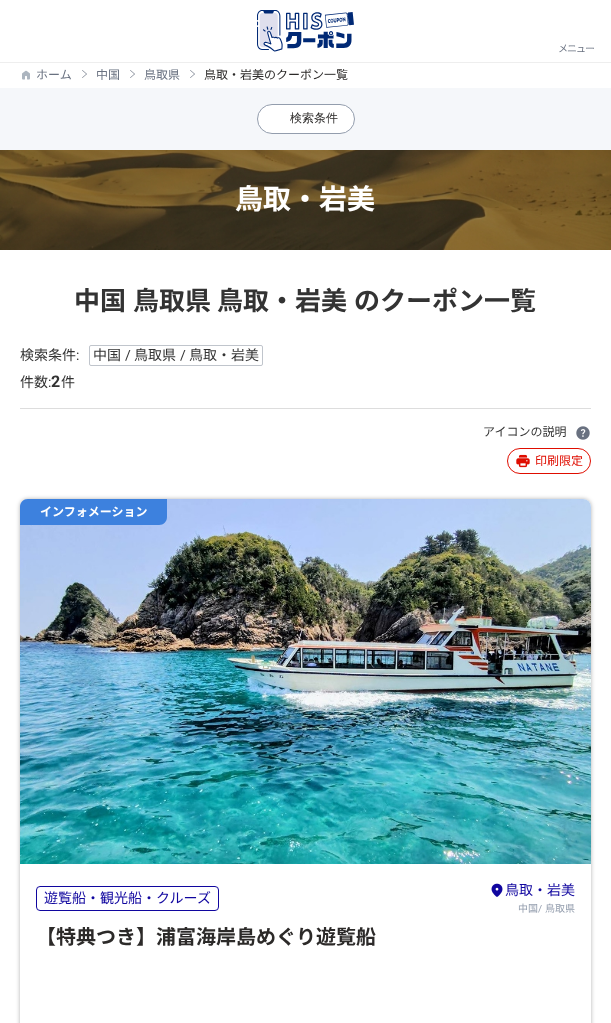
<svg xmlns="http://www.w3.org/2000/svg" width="611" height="1023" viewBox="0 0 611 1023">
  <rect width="100%" height="100%" fill="#fff"/>
  <path d="M0 62h611v1H0z" fill="#eee"/>
  <image x="257" y="10" width="97" height="42" href="img/1.png"/>
  <image x="22" y="70" width="8" height="10" href="img/2.png"/>
  <image x="82" y="70" width="5" height="8" href="img/3.png"/>
  <image x="130" y="70" width="5" height="8" href="img/3.png"/>
  <image x="190" y="70" width="5" height="8" href="img/3.png"/>
  <path d="M0 88h611v62H0z" fill="#f5f7fa"/>
  <rect x="257.5" y="104.5" width="97" height="29" rx="14.5" fill="#fff" stroke="#939dad"/>
  <image x="0" y="150" width="611" height="100" href="img/4.png"/>
  <path d="M20 408h571v1H20z" fill="#ddd"/>
  <rect x="89.5" y="345.5" width="173" height="20" rx="1.5" fill="none" stroke="#c0c5cc"/>
  <image x="576" y="426" width="14" height="14" href="img/5.png"/>
  <rect x="507.5" y="448.5" width="83" height="25" rx="12.5" fill="none" stroke="#df0d00"/>
  <image x="516" y="454" width="14" height="14" href="img/6.png"/>
  <rect x="20" y="499" width="571" height="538" rx="8" fill="#0000004d" filter="blur(2px)"/>
  <rect x="20" y="499" width="571" height="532" rx="8" fill="#fff"/>
  <image x="20" y="499" width="571" height="365" href="img/7.png"/>
  <path d="M28 499H167V517C167 521.5 163.5 525 159 525H20V507C20 502.5 23.5 499 28 499Z" fill="#3d81de"/>
  <rect x="36.5" y="886.5" width="182" height="24" rx="3.5" fill="none" stroke="#10069f"/>
  <image x="491" y="883" width="12" height="14" href="img/8.png"/>
  <text x="558" y="52" font-family="Noto Sans JP" font-size="10" letter-spacing="-1" fill="#697180">メニュー</text>
  <g font-family="Noto Sans JP" font-size="12" fill="#697180">
    <text x="36" y="79">ホーム</text>
    <text x="96" y="79">中国</text>
    <text x="144" y="79">鳥取県</text>
  </g>
  <text x="204" y="79" font-family="Noto Sans JP" font-size="12" fill="#2c2a29">鳥取・岩美のクーポン一覧</text>
  <text x="290" y="122" font-family="WenQuanYi Zen Hei" font-size="12" font-weight="500" fill="#2c2a29">検索条件</text>
  <text x="235" y="209" font-family="Noto Sans JP" font-size="28" font-weight="bold" fill="#fff">鳥取・岩美</text>
  <g font-family="Noto Sans JP" font-size="26" font-weight="bold" fill="#333">
    <text x="74" y="310">中国</text>
    <text x="133" y="310">鳥取県</text>
    <text x="217" y="310">鳥取・岩美</text>
    <text x="354" y="310">のクーポン一覧</text>
  </g>
  <text x="20" y="360" font-family="Noto Sans JP" font-size="14" fill="#333">検索条件</text>
  <text x="76" y="360" font-family="Roboto" font-size="14" fill="#333">:</text>
  <text x="93" y="360" font-family="Noto Sans JP" font-size="14" fill="#333">中国</text>
  <text x="125" y="360" font-family="Roboto" font-size="14" fill="#333">/</text>
  <text x="134" y="360" font-family="Noto Sans JP" font-size="14" fill="#333">鳥取県</text>
  <text x="180" y="360" font-family="Roboto" font-size="14" fill="#333">/</text>
  <g font-family="Noto Sans JP" font-size="14" fill="#333">
    <text x="189" y="360">鳥取・岩美</text>
    <text x="20" y="387">件数</text>
  </g>
  <text x="48" y="387" font-family="Roboto" font-size="14" fill="#333">:</text>
  <text x="51" y="387" font-family="Roboto" font-size="16" font-weight="bold" fill="#333">2</text>
  <text x="61" y="387" font-family="Noto Sans JP" font-size="14" fill="#333">件</text>
  <text x="483" y="436" font-family="Noto Sans JP" font-size="12" fill="#333">アイコンの説明</text>
  <text x="535" y="465" font-family="Noto Sans JP" font-size="12" fill="#df0d00">印刷限定</text>
  <text x="40" y="516" font-family="Noto Sans JP" font-size="12" font-weight="bold" fill="#fff">インフォメーション</text>
  <g font-family="Noto Sans JP" font-size="14" fill="#10069f">
    <text x="44" y="903">遊覧船・観光船・クルーズ</text>
    <text x="505" y="895">鳥取・岩美</text>
  </g>
  <text x="518" y="912" font-family="Noto Sans JP" font-size="10" fill="#939dad">中国</text>
  <text x="538" y="912" font-family="Roboto" font-size="10" fill="#939dad">/</text>
  <text x="545" y="912" font-family="Noto Sans JP" font-size="10" fill="#939dad">鳥取県</text>
  <text x="36" y="944" font-family="Noto Sans JP" font-size="20" font-weight="bold" fill="#2c2a29">【特典つき】浦富海岸島めぐり遊覧船</text>
</svg>
